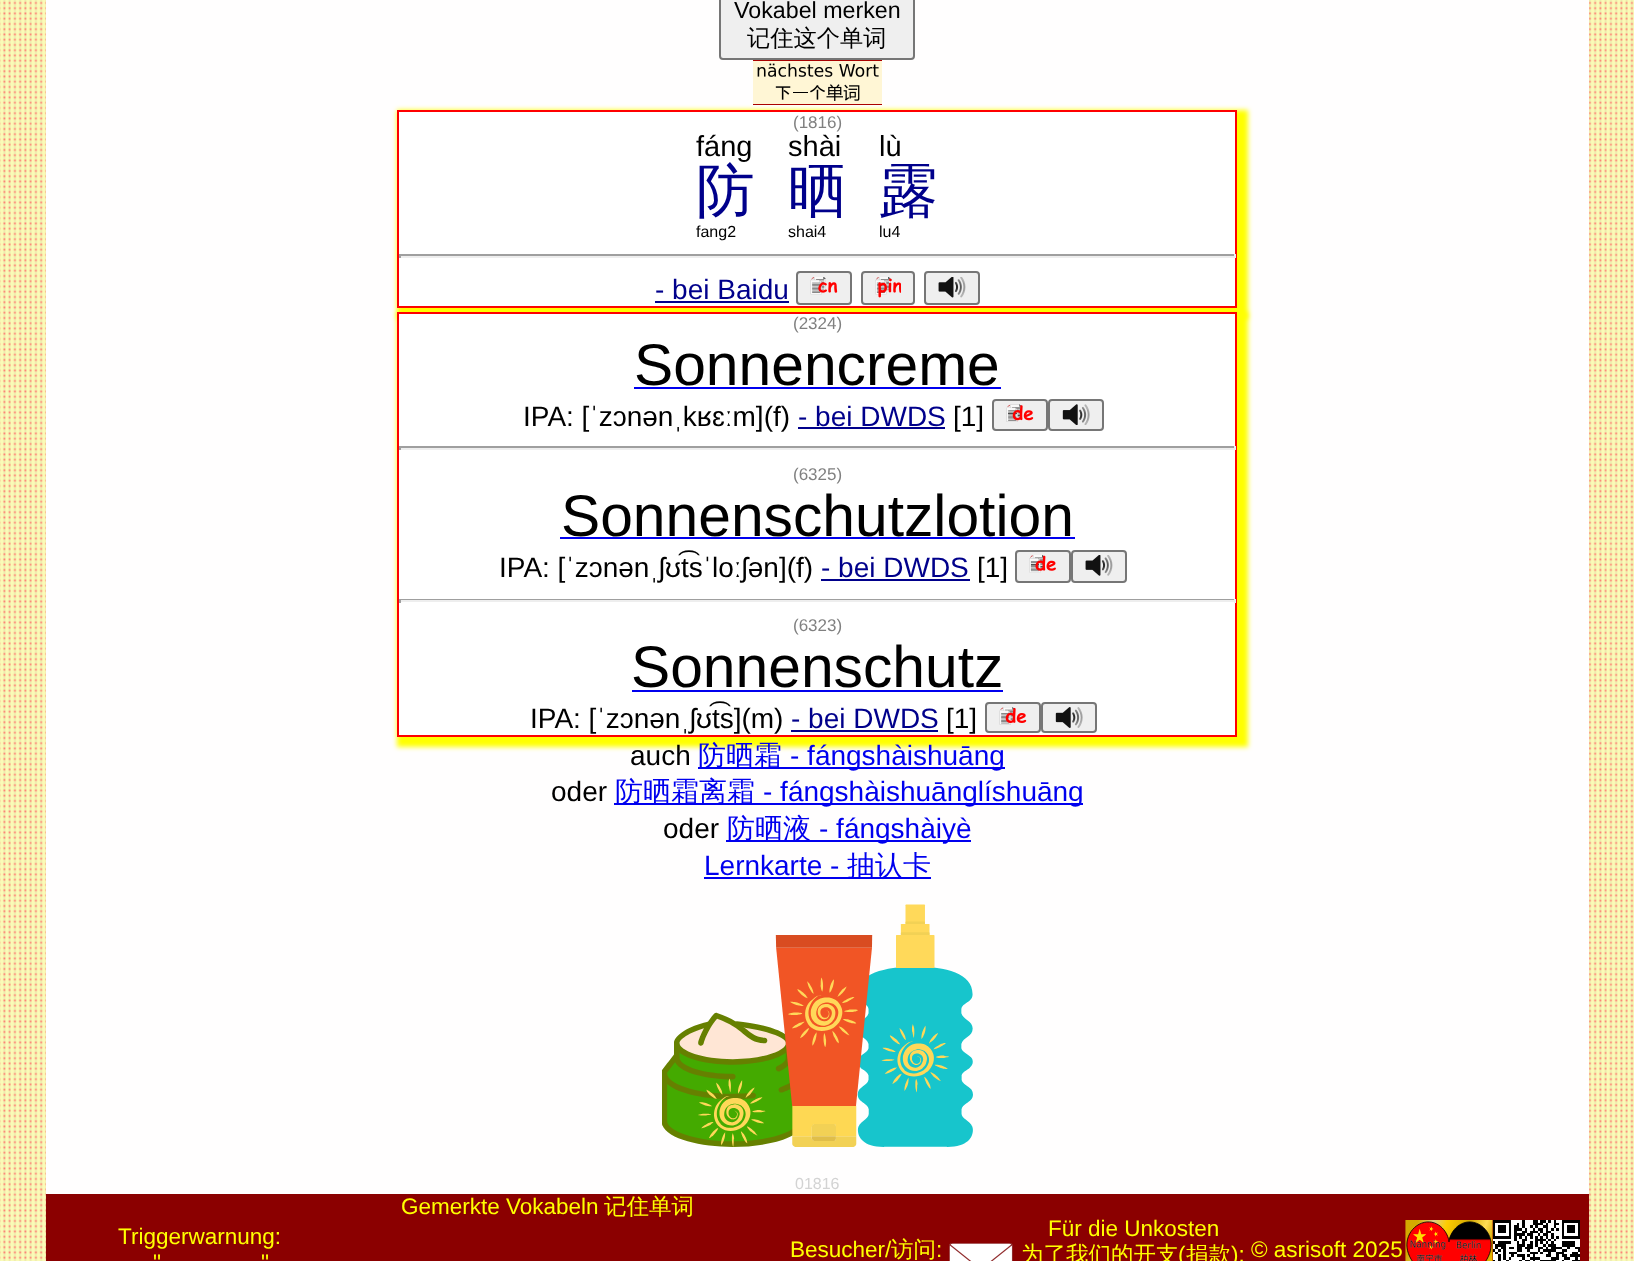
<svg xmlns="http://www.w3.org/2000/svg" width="1634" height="1261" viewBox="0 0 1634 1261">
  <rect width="100%" height="100%" fill="#fff"/>
  <image x="0" y="0" width="1634" height="1261" href="img/1.png"/>
  <path d="M46 0h1543v1194H46z" fill="#fffefe"/>
  <rect x="720" y="-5" width="194" height="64" rx="3" fill="#efefef" stroke="#767676" stroke-width="2"/>
  <image x="753" y="60" width="129" height="45" href="img/2.png"/>
  <path d="M397 110h851v209H397z" fill="#ff0" filter="blur(2.5px)"/>
  <path d="M398 111h838v196H398z" fill="#fff" stroke="#f00" stroke-width="2"/>
  <path d="M399 254h837v2H399z" fill="#9f9f9f"/>
  <path d="M1234 254h2v4H1234z" fill="#eee"/>
  <path d="M399 256h837v2H399z" fill="#eee"/>
  <path d="M399 254h2v4H399z" fill="#9f9f9f"/>
  <path d="M655 301h134v2H655z" fill="#00008b"/>
  <rect x="797" y="272" width="54" height="32" rx="3" fill="#efefef" stroke="#767676" stroke-width="2"/>
  <image x="810" y="277" width="28" height="18" href="img/3.png"/>
  <rect x="862" y="272" width="52" height="32" rx="3" fill="#efefef" stroke="#767676" stroke-width="2"/>
  <image x="875" y="277" width="26" height="21" href="img/4.png"/>
  <rect x="925" y="272" width="54" height="32" rx="3" fill="#efefef" stroke="#767676" stroke-width="2"/>
  <image x="938" y="277" width="28" height="21" href="img/5.png"/>
  <path d="M397 312h851v435H397z" fill="#ff0" filter="blur(2.5px)"/>
  <path d="M398 313h838v423H398z" fill="#fff" stroke="#f00" stroke-width="2"/>
  <path d="M634 387h367v2H634z" fill="#00e"/>
  <path d="M798 427h147v2H798z" fill="#00008b"/>
  <rect x="993" y="400" width="54" height="30" rx="3" fill="#efefef" stroke="#767676" stroke-width="2"/>
  <image x="1006" y="404" width="28" height="18" href="img/6.png"/>
  <rect x="1049" y="400" width="54" height="30" rx="3" fill="#efefef" stroke="#767676" stroke-width="2"/>
  <image x="1062" y="404" width="28" height="21" href="img/7.png"/>
  <path d="M399 446h837v2H399z" fill="#9f9f9f"/>
  <path d="M1234 446h2v4H1234z" fill="#eee"/>
  <path d="M399 448h837v2H399z" fill="#eee"/>
  <path d="M399 446h2v4H399z" fill="#9f9f9f"/>
  <path d="M560 537h515v2H560z" fill="#00e"/>
  <path d="M821 579h149v2H821z" fill="#00008b"/>
  <rect x="1016" y="551" width="54" height="31" rx="3" fill="#efefef" stroke="#767676" stroke-width="2"/>
  <image x="1029" y="555" width="27" height="18" href="img/8.png"/>
  <rect x="1072" y="551" width="54" height="31" rx="3" fill="#efefef" stroke="#767676" stroke-width="2"/>
  <image x="1085" y="555" width="28" height="21" href="img/9.png"/>
  <path d="M399 599h837v1H399z" fill="#9f9f9f"/>
  <path d="M1234 599h2v4H1234z" fill="#eee"/>
  <path d="M399 600h837v2H399z" fill="#eee"/>
  <path d="M399 599h2v4H399z" fill="#9f9f9f"/>
  <path d="M632 690h371v2H632z" fill="#00e"/>
  <path d="M791 730h147v2H791z" fill="#00008b"/>
  <rect x="986" y="703" width="54" height="29" rx="3" fill="#efefef" stroke="#767676" stroke-width="2"/>
  <image x="999" y="707" width="28" height="18" href="img/10.png"/>
  <rect x="1042" y="703" width="54" height="29" rx="3" fill="#efefef" stroke="#767676" stroke-width="2"/>
  <image x="1055" y="707" width="28" height="21" href="img/11.png"/>
  <path d="M698 767h307v2H698z" fill="#00e"/>
  <path d="M614 803h469v2H614z" fill="#00e"/>
  <path d="M726 840h245v2H726z" fill="#00e"/>
  <path d="M704 877h227v2H704z" fill="#00e"/>
  <image x="662" y="904" width="311" height="243" href="img/12.png"/>
  <path d="M46 1194h1543v67H46z" fill="#8b0000"/>
  <image x="949" y="1243" width="64" height="18" href="img/13.png"/>
  <image x="1405" y="1220" width="88" height="41" href="img/14.png"/>
  <image x="1493" y="1220" width="87" height="41" href="img/15.png"/>
  <text x="734" y="18" font-family="Liberation Sans" font-size="23.25" fill="#000">Vokabel merken</text>
  <text x="747" y="46" font-family="WenQuanYi Zen Hei" font-size="23.25" font-weight="500" fill="#000">记住这个单词</text>
  <text x="793" y="128" font-family="Liberation Sans" font-size="17" fill="#808080">(1816)</text>
  <text x="696" y="156" font-family="Liberation Sans" font-size="29" fill="#000">fáng</text>
  <text x="696" y="211" font-family="WenQuanYi Zen Hei" font-size="58.75" font-weight="500" fill="#00008b">防</text>
  <text x="696" y="237" font-family="Liberation Sans" font-size="16" fill="#000">fang2</text>
  <text x="788" y="156" font-family="Liberation Sans" font-size="29" fill="#000">shài</text>
  <text x="788" y="211" font-family="WenQuanYi Zen Hei" font-size="58.75" font-weight="500" fill="#00008b">晒</text>
  <text x="788" y="237" font-family="Liberation Sans" font-size="16" fill="#000">shai4</text>
  <text x="879" y="156" font-family="Liberation Sans" font-size="29" fill="#000">lù</text>
  <text x="879" y="211" font-family="WenQuanYi Zen Hei" font-size="58.75" font-weight="500" fill="#00008b">露</text>
  <text x="879" y="237" font-family="Liberation Sans" font-size="16" fill="#000">lu4</text>
  <text x="655" y="299" font-family="Liberation Sans" font-size="28" fill="#00008b">- bei Baidu</text>
  <text x="793" y="329" font-family="Liberation Sans" font-size="17" fill="#808080">(2324)</text>
  <text x="634" y="385" font-family="Liberation Sans" font-size="58.75" fill="#000">Sonnencreme</text>
  <text x="523" y="426" font-family="Liberation Sans" font-size="28" fill="#000">IPA: [ˈzɔnənˌkʁɛːm](f)</text>
  <text x="798" y="426" font-family="Liberation Sans" font-size="28" fill="#00008b">- bei DWDS</text>
  <text x="953" y="426" font-family="Liberation Sans" font-size="28" fill="#000">[1]</text>
  <text x="793" y="480" font-family="Liberation Sans" font-size="17" fill="#808080">(6325)</text>
  <text x="561" y="536" font-family="Liberation Sans" font-size="58.75" fill="#000">Sonnenschutzlotion</text>
  <text x="499" y="577" font-family="Liberation Sans" font-size="28" fill="#000">IPA: [ˈzɔnənˌʃʊt͡sˈloːʃən](f)</text>
  <text x="821" y="577" font-family="Liberation Sans" font-size="28" fill="#00008b">- bei DWDS</text>
  <text x="977" y="577" font-family="Liberation Sans" font-size="28" fill="#000">[1]</text>
  <text x="793" y="631" font-family="Liberation Sans" font-size="17" fill="#808080">(6323)</text>
  <text x="631" y="687" font-family="Liberation Sans" font-size="58.75" fill="#000">Sonnenschutz</text>
  <text x="530" y="728" font-family="Liberation Sans" font-size="28" fill="#000">IPA: [ˈzɔnənˌʃʊt͡s](m)</text>
  <text x="791" y="728" font-family="Liberation Sans" font-size="28" fill="#00008b">- bei DWDS</text>
  <g font-family="Liberation Sans" font-size="28" fill="#000">
    <text x="946" y="728">[1]</text>
    <text x="630" y="765">auch</text>
  </g>
  <text x="698" y="765" font-family="WenQuanYi Zen Hei" font-size="28" font-weight="500" fill="#00e">防晒霜</text>
  <text x="790" y="765" font-family="Liberation Sans" font-size="28" fill="#00e">- fángshàishuāng</text>
  <text x="551" y="801" font-family="Liberation Sans" font-size="28" fill="#000">oder</text>
  <text x="615" y="801" font-family="WenQuanYi Zen Hei" font-size="28" font-weight="500" fill="#00e">防晒霜离霜</text>
  <text x="763" y="801" font-family="Liberation Sans" font-size="28" fill="#00e">- fángshàishuānglíshuāng</text>
  <text x="663" y="838" font-family="Liberation Sans" font-size="28" fill="#000">oder</text>
  <text x="727" y="838" font-family="WenQuanYi Zen Hei" font-size="28" font-weight="500" fill="#00e">防晒液</text>
  <g font-family="Liberation Sans" font-size="28" fill="#00e">
    <text x="819" y="838">- fángshàiyè</text>
    <text x="704" y="875">Lernkarte -</text>
  </g>
  <text x="847" y="875" font-family="WenQuanYi Zen Hei" font-size="28" font-weight="500" fill="#00e">抽认卡</text>
  <text x="795" y="1189" font-family="Liberation Sans" font-size="16" fill="#d3d3d3">01816</text>
  <text x="401" y="1214" font-family="Liberation Sans" font-size="22.5" fill="#ff0">Gemerkte Vokabeln</text>
  <text x="604" y="1214" font-family="WenQuanYi Zen Hei" font-size="22.5" font-weight="500" fill="#ff0">记住单词</text>
  <g font-family="Liberation Sans" font-size="22.5" fill="#ff0">
    <text x="118" y="1244">Triggerwarnung:</text>
    <text x="153" y="1270">"</text>
    <text x="261" y="1270">"</text>
    <text x="790" y="1257">Besucher/</text>
  </g>
  <text x="891" y="1257" font-family="WenQuanYi Zen Hei" font-size="22.5" font-weight="500" fill="#ff0">访问</text>
  <g font-family="Liberation Sans" font-size="22.5" fill="#ff0">
    <text x="936" y="1257">:</text>
    <text x="1048" y="1236">Für die Unkosten</text>
  </g>
  <text x="1021" y="1262" font-family="WenQuanYi Zen Hei" font-size="22.5" font-weight="500" fill="#ff0">为了我们的开支</text>
  <text x="1178" y="1262" font-family="Liberation Sans" font-size="22.5" fill="#ff0">(</text>
  <text x="1186" y="1262" font-family="WenQuanYi Zen Hei" font-size="22.5" font-weight="500" fill="#ff0">捐款</text>
  <g font-family="Liberation Sans" font-size="22.5" fill="#ff0">
    <text x="1231" y="1262">):</text>
    <text x="1251" y="1257">© asrisoft 2025</text>
  </g>
</svg>
